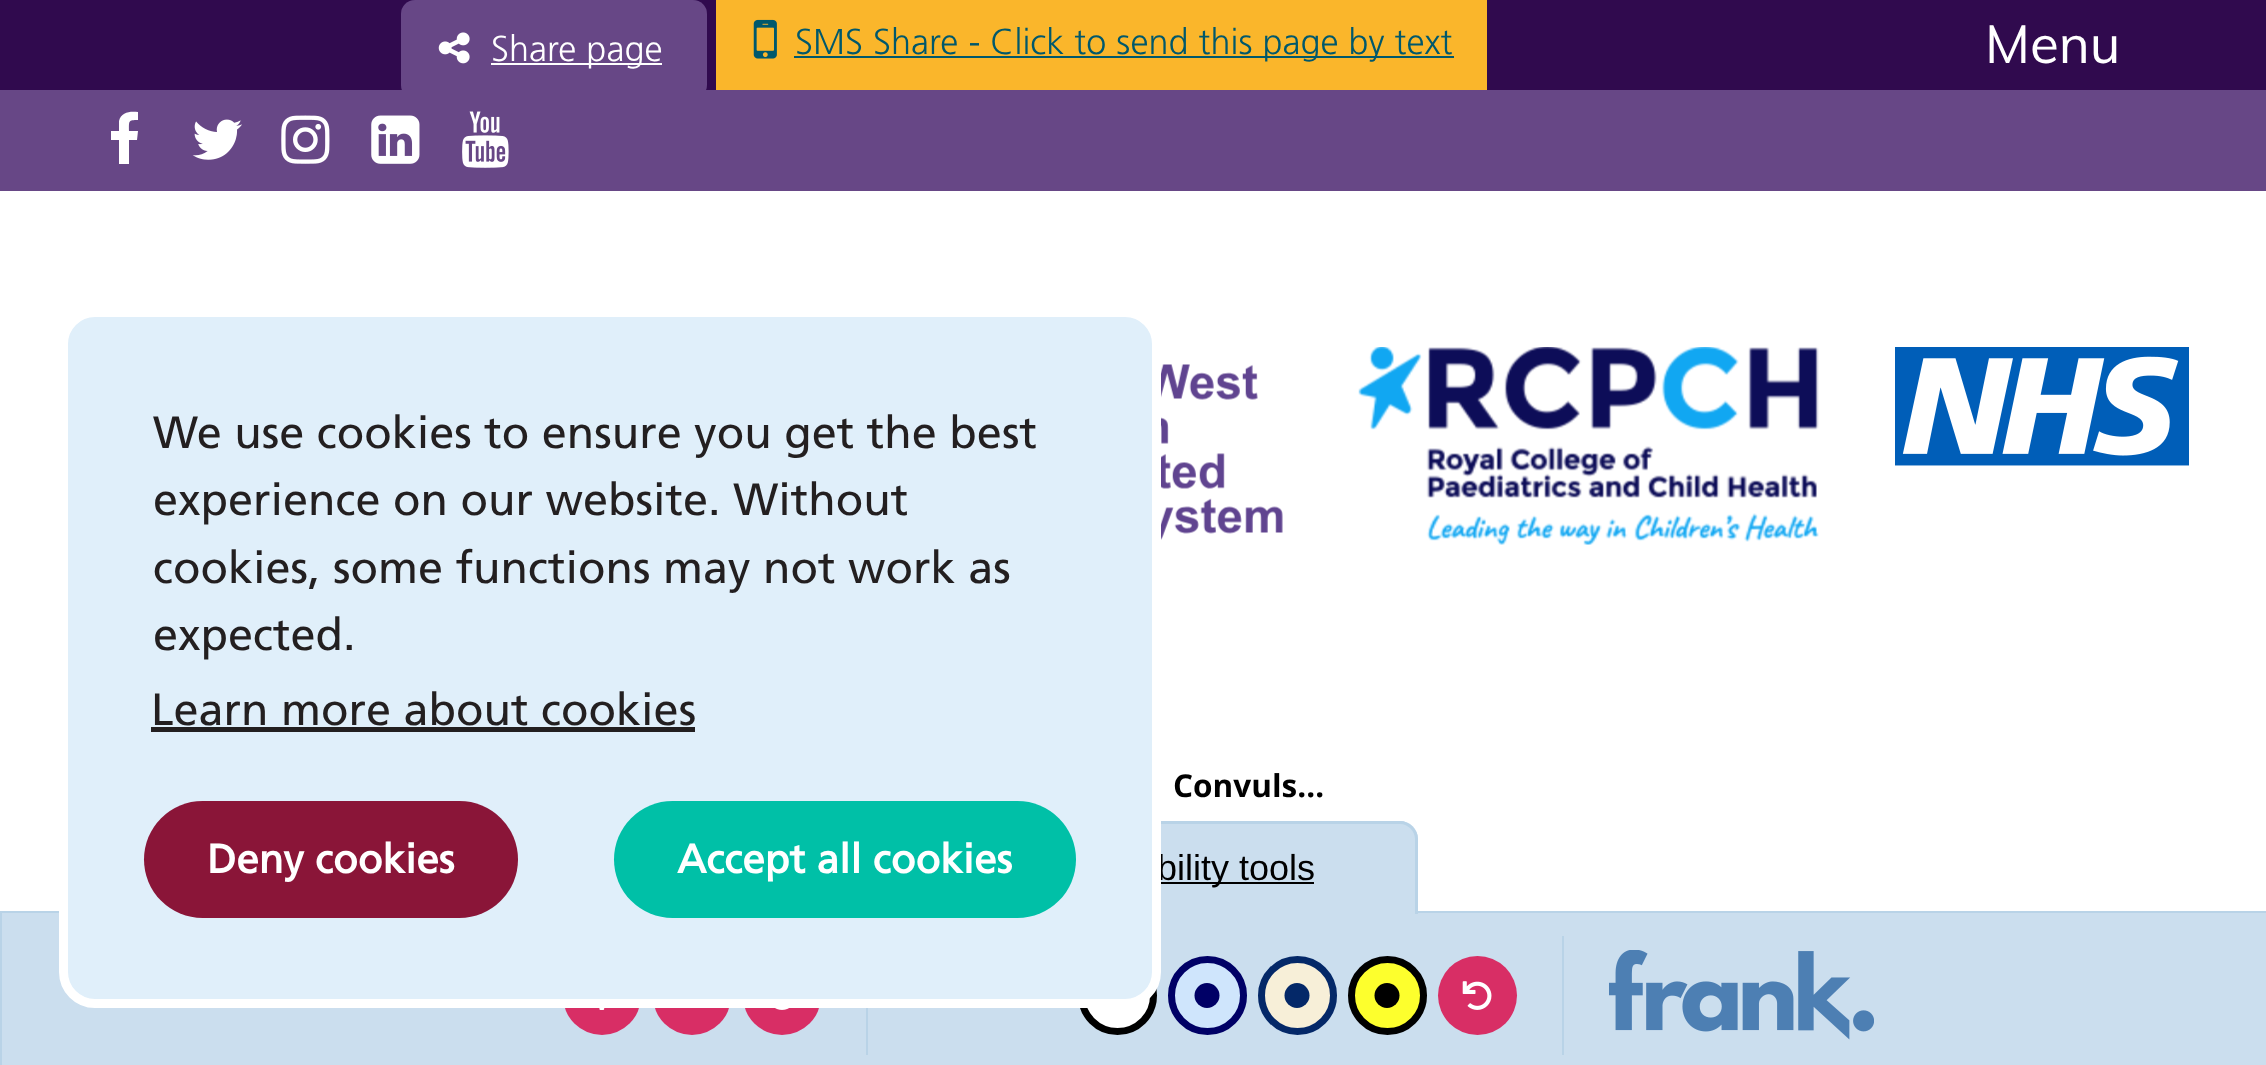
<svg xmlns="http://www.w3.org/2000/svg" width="2266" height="1065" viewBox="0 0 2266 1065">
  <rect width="100%" height="100%" fill="#fff"/>
  <path d="M0 0h2266v90H0z" fill="#300a4e"/>
  <rect x="401" width="306" height="99" rx="14" fill="#674786"/>
  <image x="438" y="32" width="32" height="32" href="img/1.png"/>
  <path d="M491 63h171v2H491z" fill="#fff"/>
  <path d="M716 0h771v90H716z" fill="#fab62b"/>
  <image x="753" y="19" width="24" height="40" href="img/2.png"/>
  <path d="M794 56h660v2H794z" fill="#00586c"/>
  <path d="M0 90h2266v101H0z" fill="#674786"/>
  <path d="M138 112V120C128 120 129 121 129 131H138L137 140H129V164H119V140H111V131H119V121C121 112 130 111 138 112Z" fill="#fff"/>
  <image x="192" y="119" width="50" height="41" href="img/3.png"/>
  <image x="281" y="115" width="49" height="49" href="img/4.png"/>
  <image x="371" y="115" width="49" height="49" href="img/5.png"/>
  <image x="462" y="111" width="47" height="57" href="img/6.png"/>
  <image x="1161" y="364" width="122" height="176" href="img/7.png"/>
  <image x="1358" y="347" width="461" height="198" href="img/8.png"/>
  <image x="1895" y="347" width="294" height="119" href="img/9.png"/>
  <path d="M1 912h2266v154H1z" fill="#cbdeee" stroke="#b9d3e7" stroke-width="2"/>
  <path d="M869 821H1400C1410 821 1418 829 1418 839V914H851V839C851 829 859 821 869 821Z" fill="#cbdeee"/>
  <path d="M868 821H1400C1409 821 1418 829 1418 839V914H850V839C850 829 859 821 868 821ZM868 824H1400C1408 824 1415 831 1415 839V914H853V839C853 831 860 824 868 824Z" fill="#b9d3e7" fill-rule="evenodd"/>
  <path d="M1161 882h153v2H1161z" fill="#000"/>
  <path d="M866 1008h2v47H866z" fill="#b9d3e7"/>
  <rect x="563" y="956" width="78" height="79" rx="39" fill="#d82e65"/>
  <image x="599" y="1008" width="6" height="2" href="img/10.png"/>
  <rect x="653" y="956" width="78" height="79" rx="39" fill="#d82e65"/>
  <rect x="743" y="956" width="78" height="79" rx="39" fill="#d82e65"/>
  <image x="775" y="1008" width="14" height="2" href="img/11.png"/>
  <path d="M1562 936h2v119H1562z" fill="#b9d3e7"/>
  <circle cx="1117.5" cy="995.5" r="36" fill="#fff" stroke="#000" stroke-width="7"/>
  <circle cx="1207.5" cy="995.5" r="36" fill="#cfe5fc" stroke="#006" stroke-width="7"/>
  <circle cx="1207" cy="995.5" r="12.5" fill="#006"/>
  <circle cx="1297.5" cy="995.5" r="36" fill="#f7efd8" stroke="#042868" stroke-width="7"/>
  <circle cx="1297" cy="995.5" r="12.5" fill="#042868"/>
  <circle cx="1387.5" cy="995.5" r="36" fill="#fdff2d" stroke="#000" stroke-width="7"/>
  <circle cx="1387" cy="995.5" r="12.5" fill="#000"/>
  <circle cx="1477.5" cy="995.5" r="39.5" fill="#d82e65"/>
  <image x="1462" y="981" width="30" height="29" href="img/12.png"/>
  <image x="1609" y="950" width="265" height="90" href="img/13.png"/>
  <text x="491" y="61" font-family="'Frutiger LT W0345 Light'" font-size="36" font-weight="300" fill="#fff">Share page</text>
  <text x="795" y="54" font-family="'Frutiger LT W0345 Light'" font-size="36" font-weight="300" fill="#00586c">SMS Share - Click to send this page by text</text>
  <text x="1985" y="63" font-family="Muli" font-size="53" fill="#fff">Menu</text>
  <text x="1157" y="880" font-family="Liberation Sans" font-size="36" fill="#000">bility tools</text>
  <text x="1173" y="797" font-family="Open Sans" font-size="31.5" font-weight="bold" fill="#000">Convuls…</text>
  <rect x="63.5" y="312.5" width="1093" height="691" rx="31.5" fill="#e0effa" stroke="#fff" stroke-width="9"/>
  <g font-family="'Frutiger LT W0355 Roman'" font-size="45" fill="#231f20">
    <text x="153" y="448">We use cookies to ensure you get the best</text>
    <text x="153" y="515">experience on our website. Without</text>
    <text x="153" y="583">cookies, some functions may not work as</text>
    <text x="153" y="650">expected.</text>
    <text x="151" y="725">Learn more about cookies</text>
  </g>
  <path d="M151 727h544v5H151z" fill="#231f20"/>
  <rect x="144" y="801" width="374" height="117" rx="58.5" fill="#8a1538"/>
  <text x="207" y="873" font-family="'Frutiger LT W0355 Roman'" font-size="40.5" font-weight="bold" fill="#fff">Deny cookies</text>
  <rect x="614" y="801" width="462" height="117" rx="58.5" fill="#00c0a7"/>
  <text x="677" y="873" font-family="'Frutiger LT W0355 Roman'" font-size="40.5" font-weight="bold" fill="#fff">Accept all cookies</text>
</svg>
